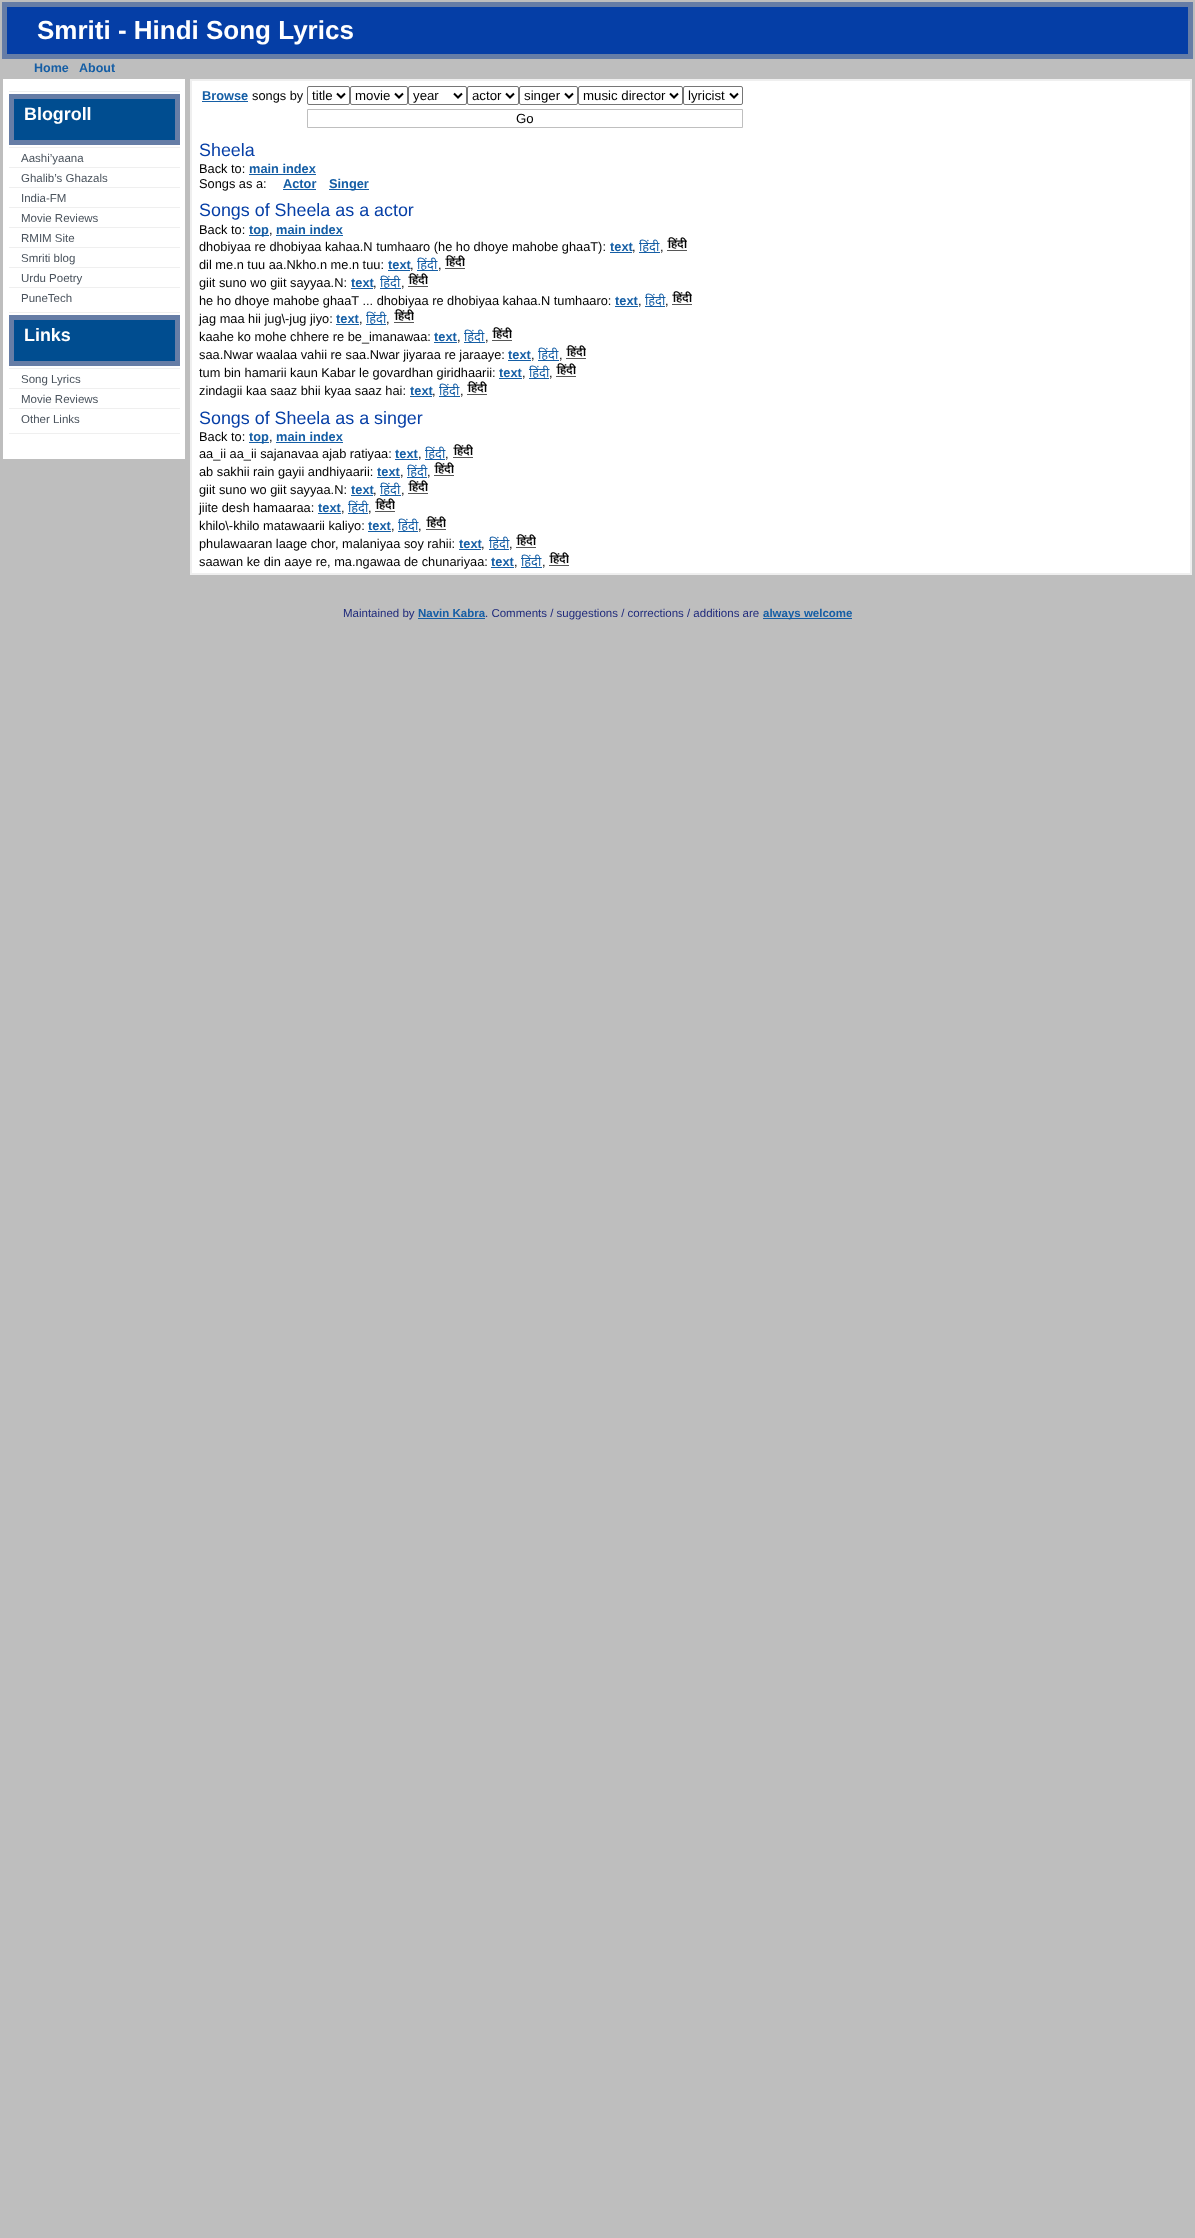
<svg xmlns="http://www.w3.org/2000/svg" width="1195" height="2238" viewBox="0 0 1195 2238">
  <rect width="100%" height="100%" fill="#bebebe"/>
  <path d="M4.5 4.5h1186v52H4.5z" fill="#053ea6" stroke="#667da6" stroke-width="5"/>
  <path d="M3 79h182v380H3z" fill="#fff"/>
  <path d="M9 91h171v1H9z" fill="#efefef"/>
  <path d="M9 312h171v1H9z" fill="#efefef"/>
  <path d="M11.5 96.5h166v46H11.5z" fill="#004d90" stroke="#667da6" stroke-width="5"/>
  <path d="M9 147h171v1H9z" fill="#efefef"/>
  <path d="M9 167h171v1H9z" fill="#efefef"/>
  <path d="M9 187h171v1H9z" fill="#efefef"/>
  <path d="M9 207h171v1H9z" fill="#efefef"/>
  <path d="M9 227h171v1H9z" fill="#efefef"/>
  <path d="M9 247h171v1H9z" fill="#efefef"/>
  <path d="M9 267h171v1H9z" fill="#efefef"/>
  <path d="M9 287h171v1H9z" fill="#efefef"/>
  <path d="M9 433h171v1H9z" fill="#efefef"/>
  <path d="M11.5 317.5h166v46H11.5z" fill="#004d90" stroke="#667da6" stroke-width="5"/>
  <path d="M9 368h171v1H9z" fill="#efefef"/>
  <path d="M9 388h171v1H9z" fill="#efefef"/>
  <path d="M9 408h171v1H9z" fill="#efefef"/>
  <path d="M190 79h1002v496H190z" fill="#efefef"/>
  <path d="M192 81h998v492H192z" fill="#fff"/>
  <path d="M202 101h46v1H202z" fill="#155ea5"/>
  <rect x="307.5" y="86.5" width="42" height="18" rx="1.5" fill="none" stroke="#767676"/>
  <path d="M337 93.5L341 97.5L345 93.5" fill="none" stroke="#000" stroke-width="2"/>
  <rect x="350.5" y="86.5" width="57" height="18" rx="1.5" fill="none" stroke="#767676"/>
  <path d="M395 93.5L399 97.5L403 93.5" fill="none" stroke="#000" stroke-width="2"/>
  <rect x="408.5" y="86.5" width="58" height="18" rx="1.5" fill="none" stroke="#767676"/>
  <path d="M454 93.5L458 97.5L462 93.5" fill="none" stroke="#000" stroke-width="2"/>
  <rect x="467.5" y="86.5" width="51" height="18" rx="1.5" fill="none" stroke="#767676"/>
  <path d="M506 93.5L510 97.5L514 93.5" fill="none" stroke="#000" stroke-width="2"/>
  <rect x="519.5" y="86.5" width="58" height="18" rx="1.5" fill="none" stroke="#767676"/>
  <path d="M565 93.5L569 97.5L573 93.5" fill="none" stroke="#000" stroke-width="2"/>
  <rect x="578.5" y="86.5" width="104" height="18" rx="1.5" fill="none" stroke="#767676"/>
  <path d="M670 93.5L674 97.5L678 93.5" fill="none" stroke="#000" stroke-width="2"/>
  <rect x="683.5" y="86.5" width="59" height="18" rx="1.5" fill="none" stroke="#767676"/>
  <path d="M730 93.5L734 97.5L738 93.5" fill="none" stroke="#000" stroke-width="2"/>
  <path d="M307.5 109.5h435v18H307.5z" fill="none" stroke="#bfbfbf"/>
  <path d="M249 174h67v1H249z" fill="#155ea5"/>
  <path d="M283 189h33v1H283z" fill="#155ea5"/>
  <path d="M329 189h40v1H329z" fill="#155ea5"/>
  <path d="M249 235h20v1H249z" fill="#155ea5"/>
  <path d="M276 235h67v1H276z" fill="#155ea5"/>
  <path d="M610 252h22v1H610z" fill="#155ea5"/>
  <path d="M639 252h21v1H639z" fill="#155ea5"/>
  <image x="667" y="237" width="20" height="14" href="img/1.png"/>
  <path d="M388 270h22v1H388z" fill="#155ea5"/>
  <path d="M417 270h21v1H417z" fill="#155ea5"/>
  <image x="445" y="255" width="20" height="14" href="img/1.png"/>
  <path d="M351 288h22v1H351z" fill="#155ea5"/>
  <path d="M380 288h21v1H380z" fill="#155ea5"/>
  <image x="408" y="273" width="20" height="14" href="img/1.png"/>
  <path d="M615 306h23v1H615z" fill="#155ea5"/>
  <path d="M645 306h20v1H645z" fill="#155ea5"/>
  <image x="672" y="291" width="20" height="14" href="img/1.png"/>
  <path d="M336 324h23v1H336z" fill="#155ea5"/>
  <path d="M366 324h20v1H366z" fill="#155ea5"/>
  <image x="394" y="309" width="20" height="14" href="img/1.png"/>
  <path d="M434 342h23v1H434z" fill="#155ea5"/>
  <path d="M464 342h21v1H464z" fill="#155ea5"/>
  <image x="492" y="327" width="20" height="14" href="img/1.png"/>
  <path d="M508 360h23v1H508z" fill="#155ea5"/>
  <path d="M538 360h21v1H538z" fill="#155ea5"/>
  <image x="566" y="345" width="20" height="14" href="img/1.png"/>
  <path d="M499 378h23v1H499z" fill="#155ea5"/>
  <path d="M529 378h20v1H529z" fill="#155ea5"/>
  <image x="556" y="363" width="20" height="14" href="img/1.png"/>
  <path d="M410 396h22v1H410z" fill="#155ea5"/>
  <path d="M439 396h21v1H439z" fill="#155ea5"/>
  <image x="467" y="381" width="20" height="14" href="img/1.png"/>
  <path d="M249 442h20v1H249z" fill="#155ea5"/>
  <path d="M276 442h67v1H276z" fill="#155ea5"/>
  <path d="M395 459h23v1H395z" fill="#155ea5"/>
  <path d="M425 459h20v1H425z" fill="#155ea5"/>
  <image x="453" y="444" width="20" height="14" href="img/1.png"/>
  <path d="M377 477h23v1H377z" fill="#155ea5"/>
  <path d="M407 477h20v1H407z" fill="#155ea5"/>
  <image x="434" y="462" width="20" height="14" href="img/1.png"/>
  <path d="M351 495h22v1H351z" fill="#155ea5"/>
  <path d="M380 495h21v1H380z" fill="#155ea5"/>
  <image x="408" y="480" width="20" height="14" href="img/1.png"/>
  <path d="M318 513h23v1H318z" fill="#155ea5"/>
  <path d="M348 513h20v1H348z" fill="#155ea5"/>
  <image x="375" y="498" width="20" height="14" href="img/1.png"/>
  <path d="M368 531h23v1H368z" fill="#155ea5"/>
  <path d="M398 531h20v1H398z" fill="#155ea5"/>
  <image x="426" y="516" width="20" height="14" href="img/1.png"/>
  <path d="M459 549h22v1H459z" fill="#155ea5"/>
  <path d="M489 549h20v1H489z" fill="#155ea5"/>
  <image x="516" y="534" width="20" height="14" href="img/1.png"/>
  <path d="M491 567h23v1H491z" fill="#155ea5"/>
  <path d="M521 567h21v1H521z" fill="#155ea5"/>
  <image x="549" y="552" width="20" height="14" href="img/1.png"/>
  <path d="M418 618h67v1H418z" fill="#155ea5"/>
  <path d="M763 618h89v1H763z" fill="#155ea5"/>
  <text x="37" y="39" font-family="Liberation Sans" font-size="26" font-weight="bold" fill="#fff">Smriti - Hindi Song Lyrics</text>
  <g font-family="Liberation Sans" font-size="12.5" font-weight="bold" fill="#155ea5">
    <text x="34" y="72">Home</text>
    <text x="79" y="72">About</text>
  </g>
  <text x="24" y="120" font-family="Liberation Sans" font-size="17.9" font-weight="bold" fill="#fff">Blogroll</text>
  <g font-family="Liberation Sans" font-size="11.5" fill="#4a535d">
    <text x="21" y="162">Aashi’yaana</text>
    <text x="21" y="182">Ghalib’s Ghazals</text>
    <text x="21" y="202">India-FM</text>
    <text x="21" y="222">Movie Reviews</text>
    <text x="21" y="242">RMIM Site</text>
    <text x="21" y="262">Smriti blog</text>
    <text x="21" y="282">Urdu Poetry</text>
    <text x="21" y="302">PuneTech</text>
  </g>
  <text x="24" y="341" font-family="Liberation Sans" font-size="17.9" font-weight="bold" fill="#fff">Links</text>
  <g font-family="Liberation Sans" font-size="11.5" fill="#4a535d">
    <text x="21" y="383">Song Lyrics</text>
    <text x="21" y="403">Movie Reviews</text>
    <text x="21" y="423">Other Links</text>
  </g>
  <text x="202" y="100" font-family="Liberation Sans" font-size="12.8" font-weight="bold" fill="#155ea5">Browse</text>
  <text x="252" y="100" font-family="Liberation Sans" font-size="12.8" fill="#000">songs by</text>
  <g font-family="Liberation Sans" font-size="13.25" fill="#000">
    <text x="312" y="100">title</text>
    <text x="355" y="100">movie</text>
    <text x="413" y="100">year</text>
    <text x="472" y="100">actor</text>
    <text x="524" y="100">singer</text>
    <text x="583" y="100">music director</text>
    <text x="688" y="100">lyricist</text>
    <text x="516" y="123">Go</text>
  </g>
  <text x="199" y="156" font-family="Liberation Sans" font-size="17.9" fill="#053ea6">Sheela</text>
  <text x="199" y="173" font-family="Liberation Sans" font-size="12.8" fill="#000">Back to:</text>
  <text x="249" y="173" font-family="Liberation Sans" font-size="12.8" font-weight="bold" fill="#155ea5">main index</text>
  <text x="199" y="188" font-family="Liberation Sans" font-size="12.8" fill="#000">Songs as a:</text>
  <g font-family="Liberation Sans" font-size="12.8" font-weight="bold" fill="#155ea5">
    <text x="283" y="188">Actor</text>
    <text x="329" y="188">Singer</text>
  </g>
  <text x="199" y="216" font-family="Liberation Sans" font-size="17.9" fill="#053ea6">Songs of Sheela as a actor</text>
  <text x="199" y="234" font-family="Liberation Sans" font-size="12.8" fill="#000">Back to:</text>
  <text x="249" y="234" font-family="Liberation Sans" font-size="12.8" font-weight="bold" fill="#155ea5">top</text>
  <text x="269" y="234" font-family="Liberation Sans" font-size="12.8" fill="#000">,</text>
  <text x="276" y="234" font-family="Liberation Sans" font-size="12.8" font-weight="bold" fill="#155ea5">main index</text>
  <text x="199" y="251" font-family="Liberation Sans" font-size="12.8" fill="#000">dhobiyaa re dhobiyaa kahaa.N tumhaaro (he ho dhoye mahobe ghaaT):</text>
  <text x="610" y="251" font-family="Liberation Sans" font-size="12.8" font-weight="bold" fill="#155ea5">text</text>
  <text x="632" y="251" font-family="Liberation Sans" font-size="12.8" fill="#000">,</text>
  <text x="639" y="251" font-family="Noto Sans" font-size="12.8" fill="#155ea5">हिंदी</text>
  <g font-family="Liberation Sans" font-size="12.8" fill="#000">
    <text x="660" y="251">,</text>
    <text x="199" y="269">dil me.n tuu aa.Nkho.n me.n tuu:</text>
  </g>
  <text x="388" y="269" font-family="Liberation Sans" font-size="12.8" font-weight="bold" fill="#155ea5">text</text>
  <text x="410" y="269" font-family="Liberation Sans" font-size="12.8" fill="#000">,</text>
  <text x="417" y="269" font-family="Noto Sans" font-size="12.8" fill="#155ea5">हिंदी</text>
  <g font-family="Liberation Sans" font-size="12.8" fill="#000">
    <text x="438" y="269">,</text>
    <text x="199" y="287">giit suno wo giit sayyaa.N:</text>
  </g>
  <text x="351" y="287" font-family="Liberation Sans" font-size="12.8" font-weight="bold" fill="#155ea5">text</text>
  <text x="373" y="287" font-family="Liberation Sans" font-size="12.8" fill="#000">,</text>
  <text x="380" y="287" font-family="Noto Sans" font-size="12.8" fill="#155ea5">हिंदी</text>
  <g font-family="Liberation Sans" font-size="12.8" fill="#000">
    <text x="401" y="287">,</text>
    <text x="199" y="305">he ho dhoye mahobe ghaaT ... dhobiyaa re dhobiyaa kahaa.N tumhaaro:</text>
  </g>
  <text x="615" y="305" font-family="Liberation Sans" font-size="12.8" font-weight="bold" fill="#155ea5">text</text>
  <text x="638" y="305" font-family="Liberation Sans" font-size="12.8" fill="#000">,</text>
  <text x="645" y="305" font-family="Noto Sans" font-size="12.8" fill="#155ea5">हिंदी</text>
  <g font-family="Liberation Sans" font-size="12.8" fill="#000">
    <text x="665" y="305">,</text>
    <text x="199" y="323">jag maa hii jug\-jug jiyo:</text>
  </g>
  <text x="336" y="323" font-family="Liberation Sans" font-size="12.8" font-weight="bold" fill="#155ea5">text</text>
  <text x="359" y="323" font-family="Liberation Sans" font-size="12.8" fill="#000">,</text>
  <text x="366" y="323" font-family="Noto Sans" font-size="12.8" fill="#155ea5">हिंदी</text>
  <g font-family="Liberation Sans" font-size="12.8" fill="#000">
    <text x="386" y="323">,</text>
    <text x="199" y="341">kaahe ko mohe chhere re be_imanawaa:</text>
  </g>
  <text x="434" y="341" font-family="Liberation Sans" font-size="12.8" font-weight="bold" fill="#155ea5">text</text>
  <text x="457" y="341" font-family="Liberation Sans" font-size="12.8" fill="#000">,</text>
  <text x="464" y="341" font-family="Noto Sans" font-size="12.8" fill="#155ea5">हिंदी</text>
  <g font-family="Liberation Sans" font-size="12.8" fill="#000">
    <text x="485" y="341">,</text>
    <text x="199" y="359">saa.Nwar waalaa vahii re saa.Nwar jiyaraa re jaraaye:</text>
  </g>
  <text x="508" y="359" font-family="Liberation Sans" font-size="12.8" font-weight="bold" fill="#155ea5">text</text>
  <text x="531" y="359" font-family="Liberation Sans" font-size="12.8" fill="#000">,</text>
  <text x="538" y="359" font-family="Noto Sans" font-size="12.8" fill="#155ea5">हिंदी</text>
  <g font-family="Liberation Sans" font-size="12.8" fill="#000">
    <text x="559" y="359">,</text>
    <text x="199" y="377">tum bin hamarii kaun Kabar le govardhan giridhaarii:</text>
  </g>
  <text x="499" y="377" font-family="Liberation Sans" font-size="12.8" font-weight="bold" fill="#155ea5">text</text>
  <text x="522" y="377" font-family="Liberation Sans" font-size="12.8" fill="#000">,</text>
  <text x="529" y="377" font-family="Noto Sans" font-size="12.8" fill="#155ea5">हिंदी</text>
  <g font-family="Liberation Sans" font-size="12.8" fill="#000">
    <text x="549" y="377">,</text>
    <text x="199" y="395">zindagii kaa saaz bhii kyaa saaz hai:</text>
  </g>
  <text x="410" y="395" font-family="Liberation Sans" font-size="12.8" font-weight="bold" fill="#155ea5">text</text>
  <text x="432" y="395" font-family="Liberation Sans" font-size="12.8" fill="#000">,</text>
  <text x="439" y="395" font-family="Noto Sans" font-size="12.8" fill="#155ea5">हिंदी</text>
  <text x="460" y="395" font-family="Liberation Sans" font-size="12.8" fill="#000">,</text>
  <text x="199" y="424" font-family="Liberation Sans" font-size="17.9" fill="#053ea6">Songs of Sheela as a singer</text>
  <text x="199" y="441" font-family="Liberation Sans" font-size="12.8" fill="#000">Back to:</text>
  <text x="249" y="441" font-family="Liberation Sans" font-size="12.8" font-weight="bold" fill="#155ea5">top</text>
  <text x="269" y="441" font-family="Liberation Sans" font-size="12.8" fill="#000">,</text>
  <text x="276" y="441" font-family="Liberation Sans" font-size="12.8" font-weight="bold" fill="#155ea5">main index</text>
  <text x="199" y="458" font-family="Liberation Sans" font-size="12.8" fill="#000">aa_ii aa_ii sajanavaa ajab ratiyaa:</text>
  <text x="395" y="458" font-family="Liberation Sans" font-size="12.8" font-weight="bold" fill="#155ea5">text</text>
  <text x="418" y="458" font-family="Liberation Sans" font-size="12.8" fill="#000">,</text>
  <text x="425" y="458" font-family="Noto Sans" font-size="12.8" fill="#155ea5">हिंदी</text>
  <g font-family="Liberation Sans" font-size="12.8" fill="#000">
    <text x="445" y="458">,</text>
    <text x="199" y="476">ab sakhii rain gayii andhiyaarii:</text>
  </g>
  <text x="377" y="476" font-family="Liberation Sans" font-size="12.8" font-weight="bold" fill="#155ea5">text</text>
  <text x="400" y="476" font-family="Liberation Sans" font-size="12.8" fill="#000">,</text>
  <text x="407" y="476" font-family="Noto Sans" font-size="12.8" fill="#155ea5">हिंदी</text>
  <g font-family="Liberation Sans" font-size="12.8" fill="#000">
    <text x="427" y="476">,</text>
    <text x="199" y="494">giit suno wo giit sayyaa.N:</text>
  </g>
  <text x="351" y="494" font-family="Liberation Sans" font-size="12.8" font-weight="bold" fill="#155ea5">text</text>
  <text x="373" y="494" font-family="Liberation Sans" font-size="12.8" fill="#000">,</text>
  <text x="380" y="494" font-family="Noto Sans" font-size="12.8" fill="#155ea5">हिंदी</text>
  <g font-family="Liberation Sans" font-size="12.8" fill="#000">
    <text x="401" y="494">,</text>
    <text x="199" y="512">jiite desh hamaaraa:</text>
  </g>
  <text x="318" y="512" font-family="Liberation Sans" font-size="12.8" font-weight="bold" fill="#155ea5">text</text>
  <text x="341" y="512" font-family="Liberation Sans" font-size="12.8" fill="#000">,</text>
  <text x="348" y="512" font-family="Noto Sans" font-size="12.8" fill="#155ea5">हिंदी</text>
  <g font-family="Liberation Sans" font-size="12.8" fill="#000">
    <text x="368" y="512">,</text>
    <text x="199" y="530">khilo\-khilo matawaarii kaliyo:</text>
  </g>
  <text x="368" y="530" font-family="Liberation Sans" font-size="12.8" font-weight="bold" fill="#155ea5">text</text>
  <text x="391" y="530" font-family="Liberation Sans" font-size="12.8" fill="#000">,</text>
  <text x="398" y="530" font-family="Noto Sans" font-size="12.8" fill="#155ea5">हिंदी</text>
  <g font-family="Liberation Sans" font-size="12.8" fill="#000">
    <text x="418" y="530">,</text>
    <text x="199" y="548">phulawaaran laage chor, malaniyaa soy rahii:</text>
  </g>
  <text x="459" y="548" font-family="Liberation Sans" font-size="12.8" font-weight="bold" fill="#155ea5">text</text>
  <text x="481" y="548" font-family="Liberation Sans" font-size="12.8" fill="#000">,</text>
  <text x="489" y="548" font-family="Noto Sans" font-size="12.8" fill="#155ea5">हिंदी</text>
  <g font-family="Liberation Sans" font-size="12.8" fill="#000">
    <text x="509" y="548">,</text>
    <text x="199" y="566">saawan ke din aaye re, ma.ngawaa de chunariyaa:</text>
  </g>
  <text x="491" y="566" font-family="Liberation Sans" font-size="12.8" font-weight="bold" fill="#155ea5">text</text>
  <text x="514" y="566" font-family="Liberation Sans" font-size="12.8" fill="#000">,</text>
  <text x="521" y="566" font-family="Noto Sans" font-size="12.8" fill="#155ea5">हिंदी</text>
  <text x="542" y="566" font-family="Liberation Sans" font-size="12.8" fill="#000">,</text>
  <text x="343" y="617" font-family="Liberation Sans" font-size="11.5" fill="#202b7c">Maintained by</text>
  <text x="418" y="617" font-family="Liberation Sans" font-size="11.5" font-weight="bold" fill="#155ea5">Navin Kabra</text>
  <text x="485" y="617" font-family="Liberation Sans" font-size="11.5" fill="#202b7c">. Comments / suggestions / corrections / additions are</text>
  <text x="763" y="617" font-family="Liberation Sans" font-size="11.5" font-weight="bold" fill="#155ea5">always welcome</text>
</svg>
